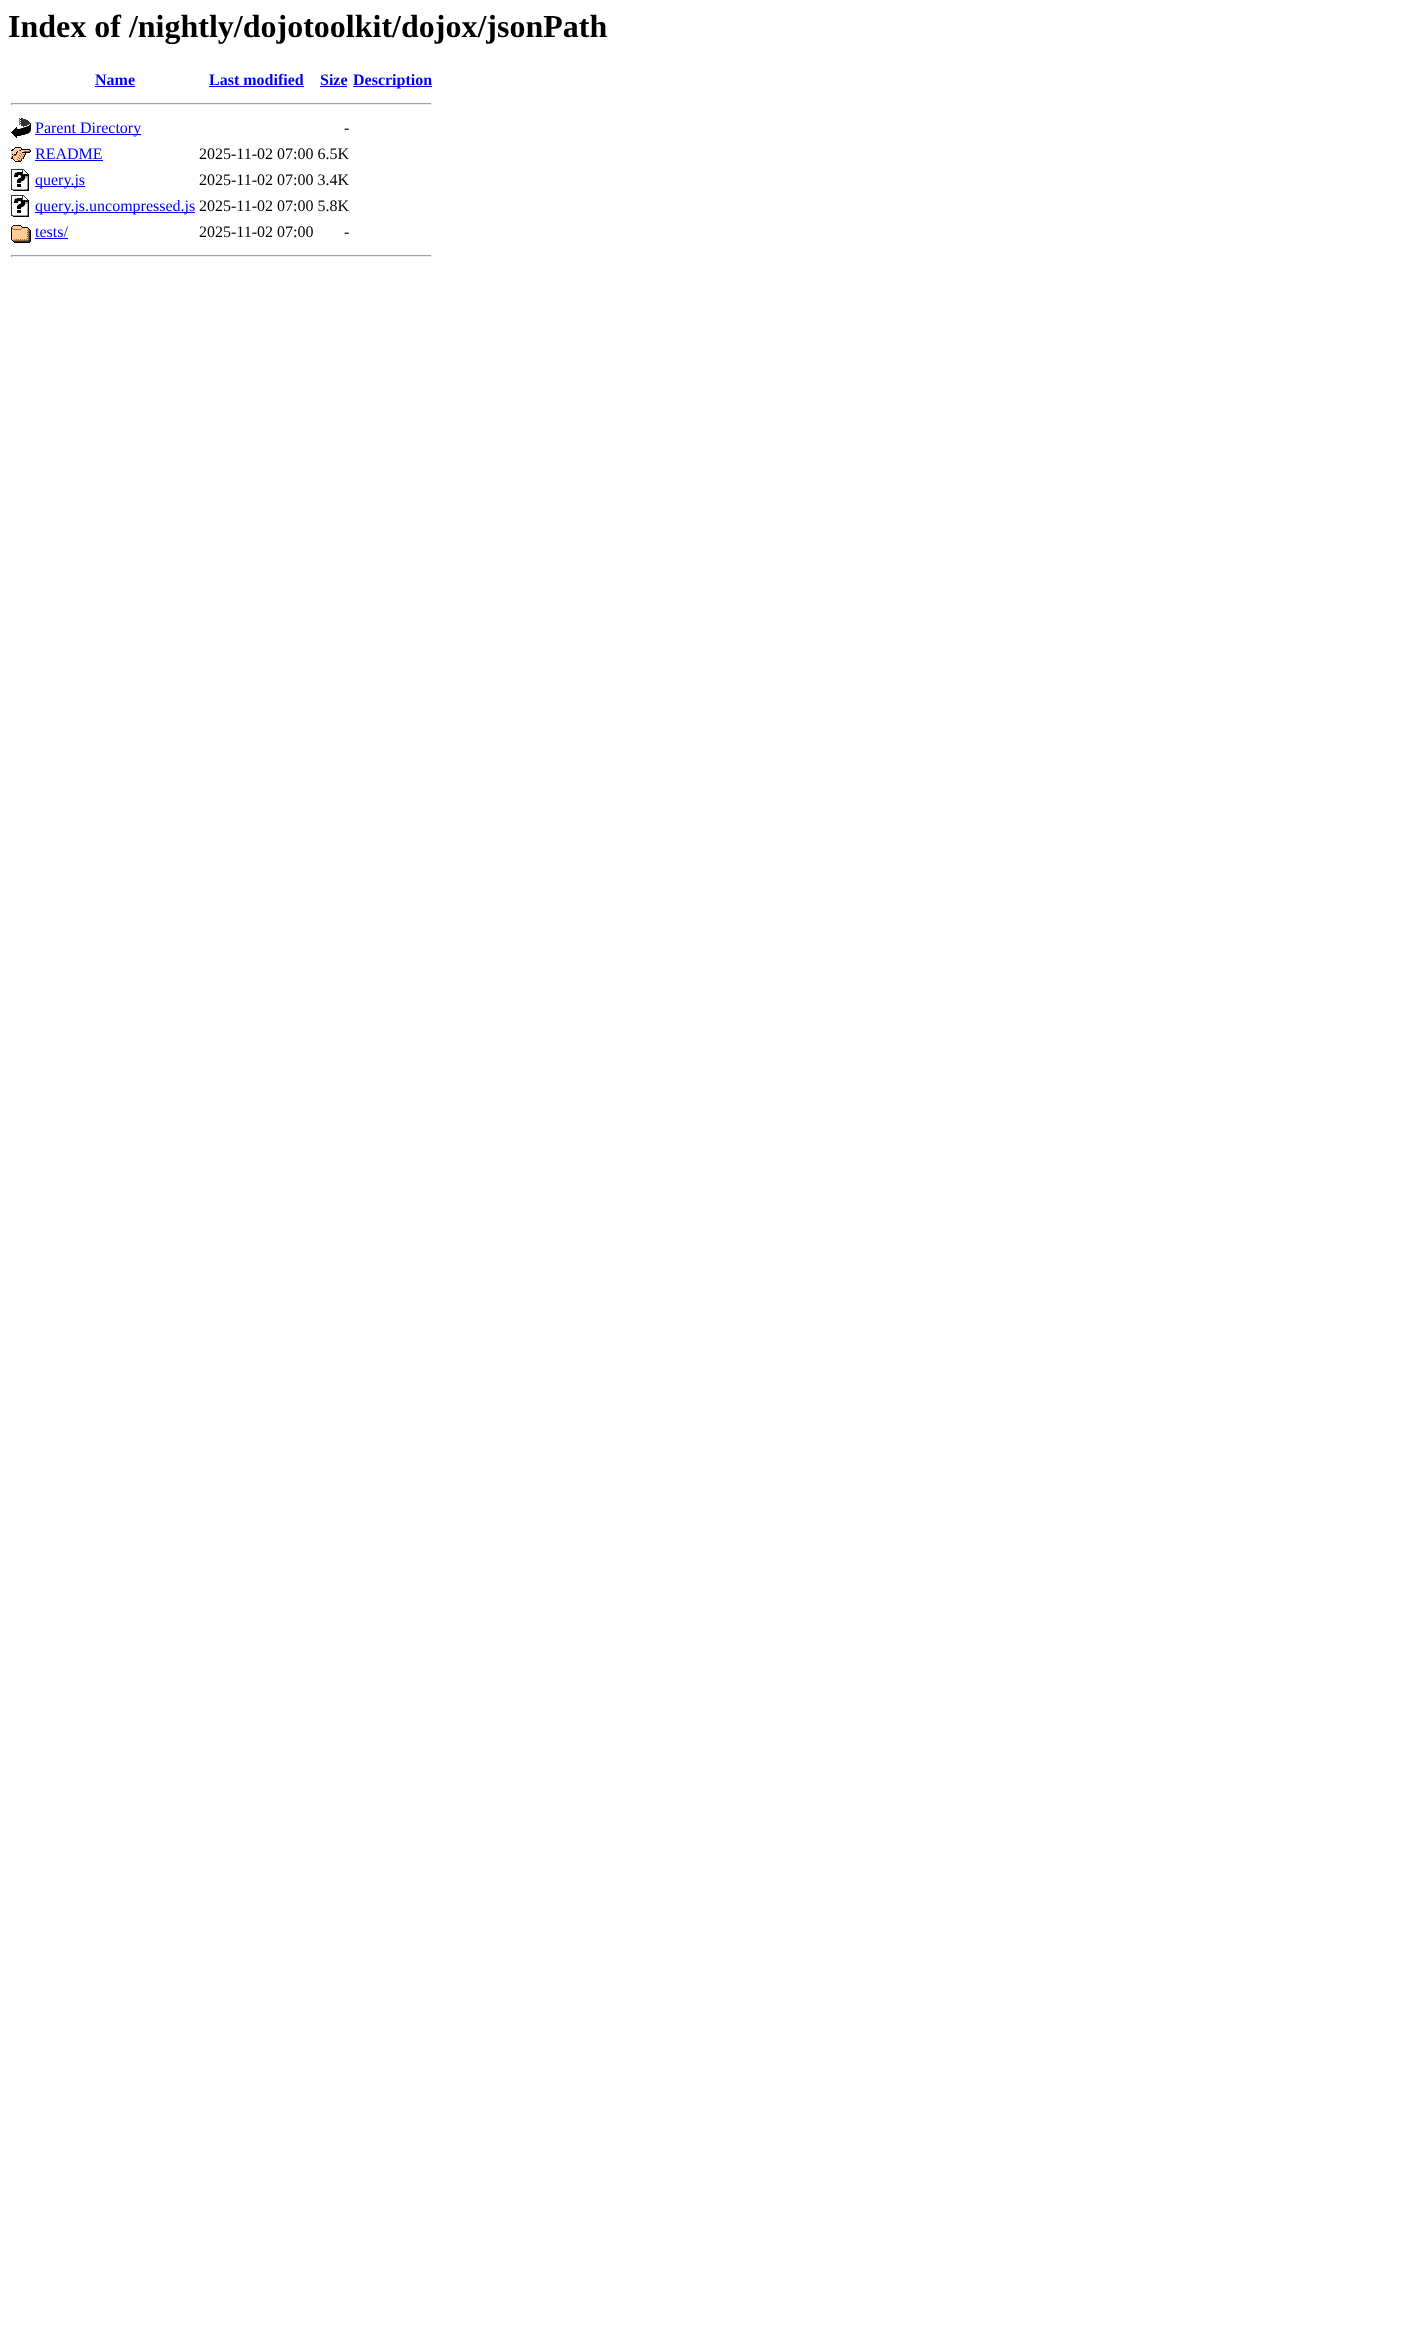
<svg xmlns="http://www.w3.org/2000/svg" width="1415" height="2325" viewBox="0 0 1415 2325">
  <rect width="100%" height="100%" fill="#fff"/>
  <path d="M95 86h40v1H95z" fill="#00e"/>
  <path d="M209 86h95v1H209z" fill="#00e"/>
  <path d="M320 86h27v1H320z" fill="#00e"/>
  <path d="M353 86h79v1H353z" fill="#00e"/>
  <path d="M11 103h421v1H11z" fill="#9f9f9f"/>
  <path d="M431 103h1v2H431z" fill="#eee"/>
  <path d="M11 104h421v1H11z" fill="#eee"/>
  <path d="M11 103h1v2H11z" fill="#9f9f9f"/>
  <image x="11" y="118" width="20" height="20" href="img/1.png"/>
  <path d="M35 134h106v1H35z" fill="#00e"/>
  <image x="11" y="147" width="20" height="15" href="img/2.png"/>
  <path d="M35 160h68v1H35z" fill="#00e"/>
  <image x="11" y="169" width="18" height="22" href="img/3.png"/>
  <path d="M35 186h50v1H35z" fill="#00e"/>
  <image x="11" y="195" width="18" height="22" href="img/3.png"/>
  <path d="M35 212h160v1H35z" fill="#00e"/>
  <image x="11" y="225" width="20" height="18" href="img/4.png"/>
  <path d="M35 238h33v1H35z" fill="#00e"/>
  <path d="M11 255h421v1H11z" fill="#9f9f9f"/>
  <path d="M431 255h1v2H431z" fill="#eee"/>
  <path d="M11 256h421v1H11z" fill="#eee"/>
  <path d="M11 255h1v2H11z" fill="#9f9f9f"/>
  <text x="8" y="37" font-family="Liberation Serif" font-size="32" font-weight="bold" fill="#000">Index of /nightly/dojotoolkit/dojox/jsonPath</text>
  <g font-family="Liberation Serif" font-size="16" font-weight="bold" fill="#00e">
    <text x="95" y="85">Name</text>
    <text x="209" y="85">Last modified</text>
    <text x="320" y="85">Size</text>
    <text x="353" y="85">Description</text>
  </g>
  <text x="35" y="133" font-family="Liberation Serif" font-size="16" fill="#00e">Parent Directory</text>
  <text x="344" y="133" font-family="Liberation Serif" font-size="16" fill="#000">-</text>
  <text x="35" y="159" font-family="Liberation Serif" font-size="16" fill="#00e">README</text>
  <text x="199" y="159" font-family="Liberation Serif" font-size="16" fill="#000">2025-11-02 07:00 6.5K</text>
  <text x="35" y="185" font-family="Liberation Serif" font-size="16" fill="#00e">query.js</text>
  <text x="199" y="185" font-family="Liberation Serif" font-size="16" fill="#000">2025-11-02 07:00 3.4K</text>
  <text x="35" y="211" font-family="Liberation Serif" font-size="16" fill="#00e">query.js.uncompressed.js</text>
  <text x="199" y="211" font-family="Liberation Serif" font-size="16" fill="#000">2025-11-02 07:00 5.8K</text>
  <text x="35" y="237" font-family="Liberation Serif" font-size="16" fill="#00e">tests/</text>
  <g font-family="Liberation Serif" font-size="16" fill="#000">
    <text x="199" y="237">2025-11-02 07:00</text>
    <text x="344" y="237">-</text>
  </g>
</svg>
